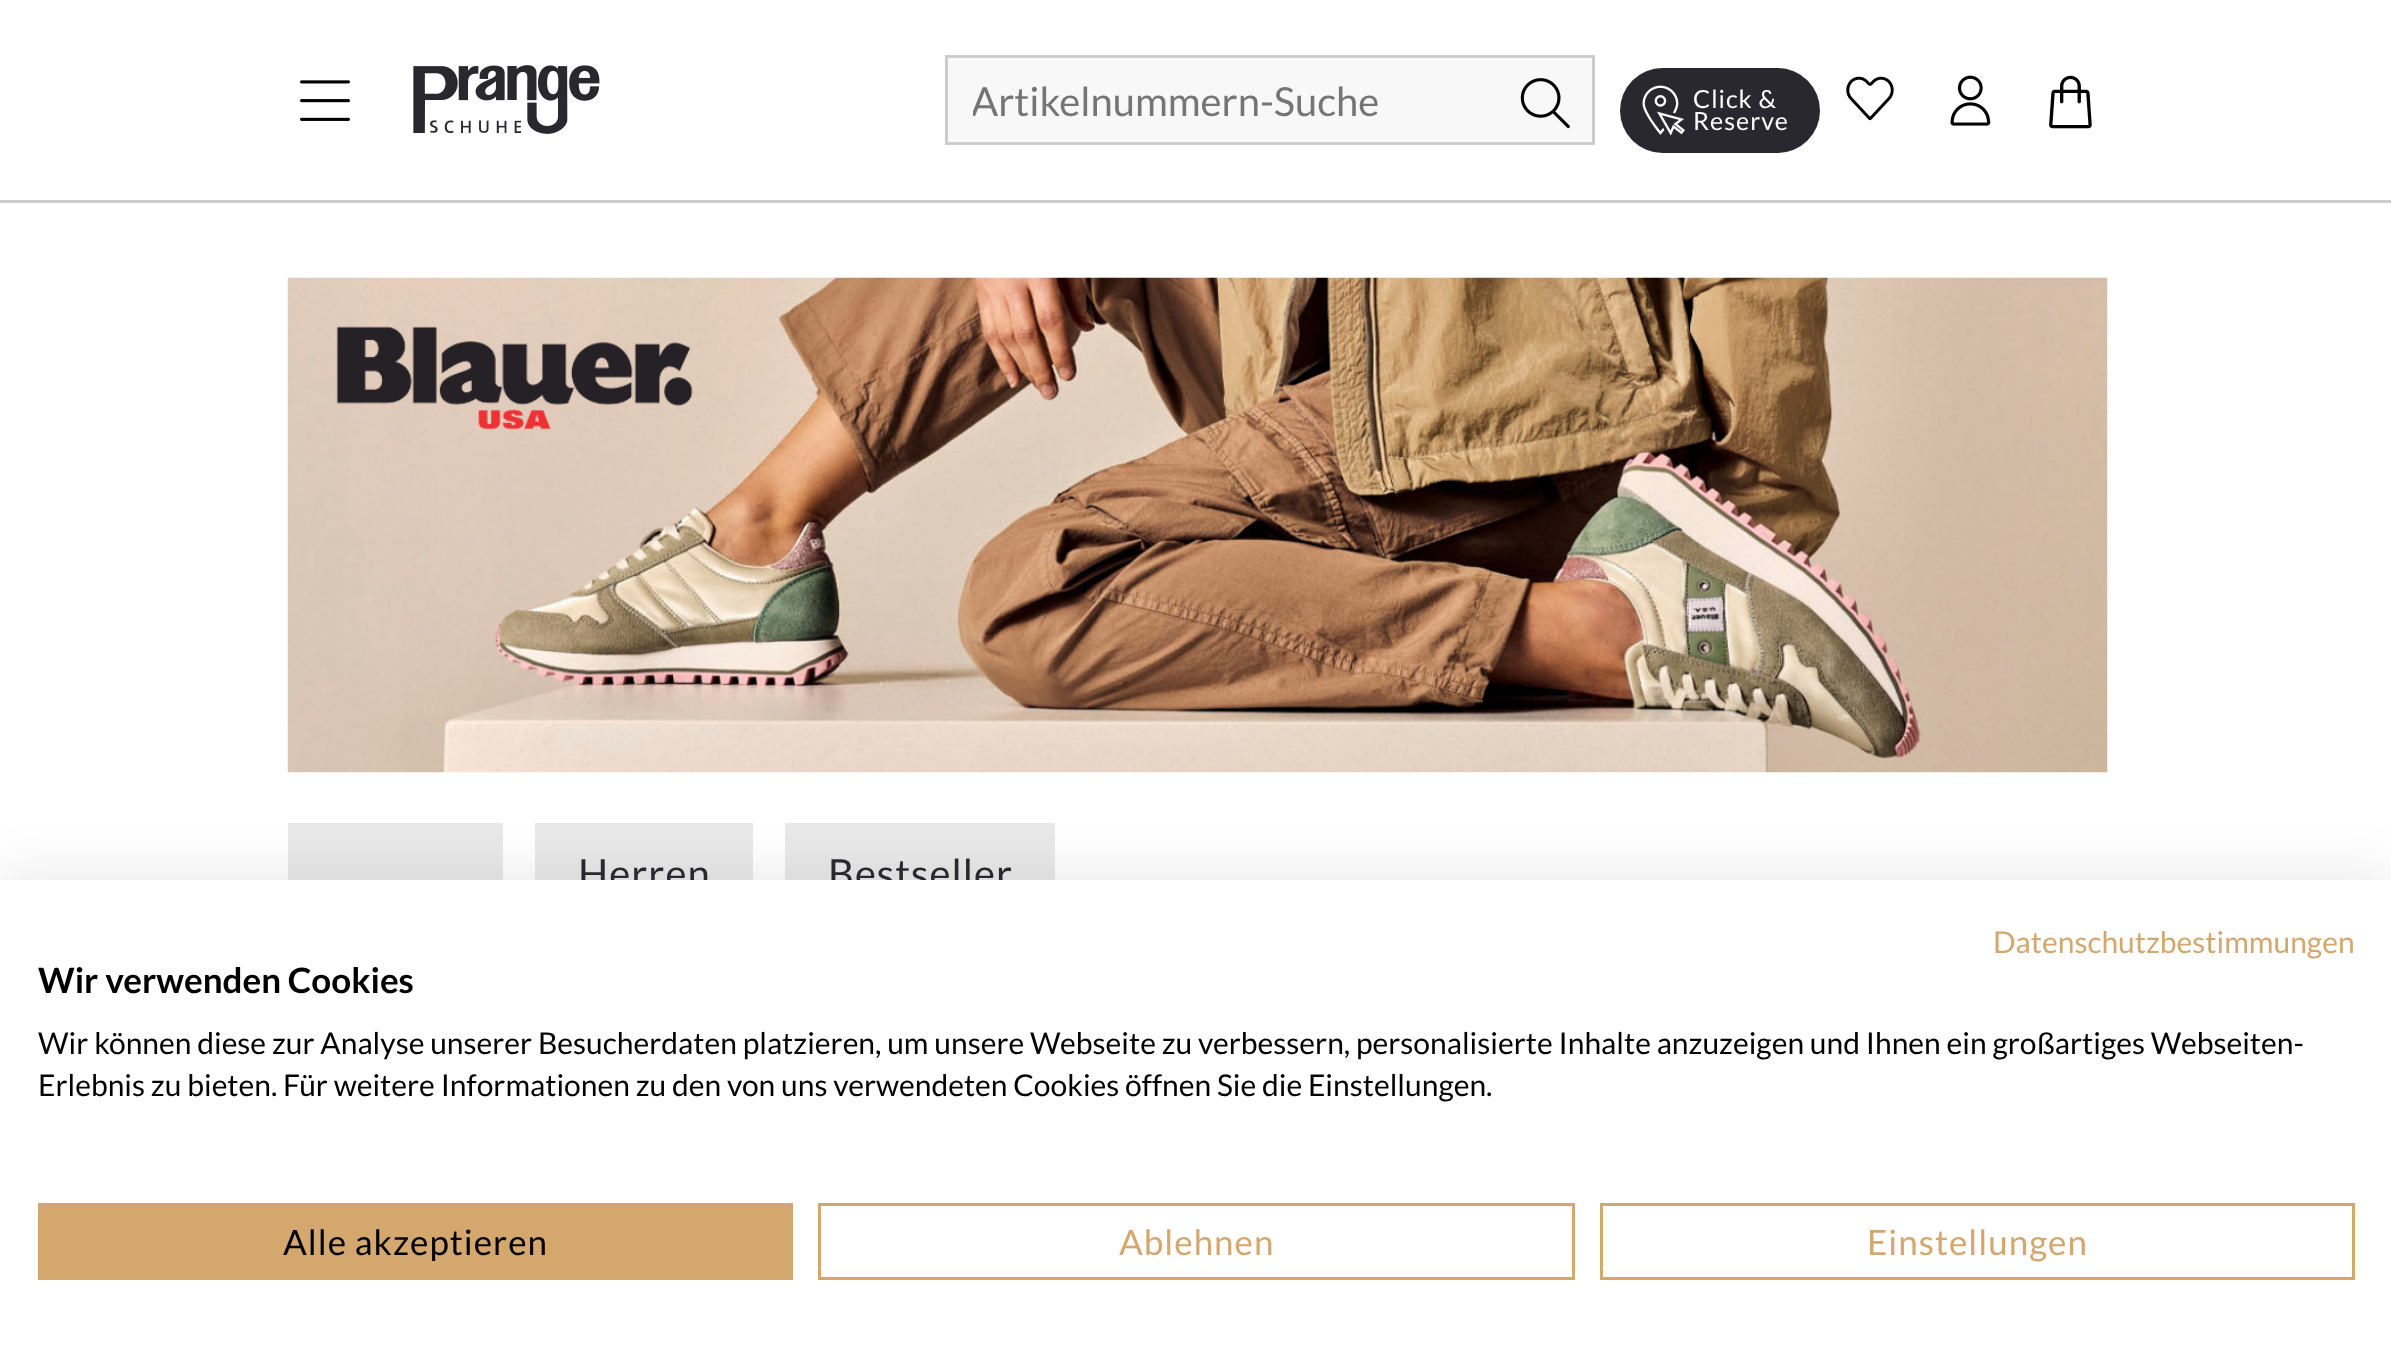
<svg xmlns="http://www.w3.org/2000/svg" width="2391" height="1346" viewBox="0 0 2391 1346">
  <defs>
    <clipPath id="clip1"><path d="M973 78h595v47H973z"/></clipPath>
  </defs>
  <rect width="100%" height="100%" fill="#fff"/>
  <path d="M0 200h2391v3H0z" fill="#ccc"/>
  <image x="300" y="80" width="50" height="41" href="img/1.png"/>
  <image x="413" y="65" width="187" height="69" href="img/2.png"/>
  <path d="M946.5 56.5h647v87H946.5z" fill="#f8f8f8" stroke="#ccc" stroke-width="3"/>
  <image x="1520" y="78" width="50" height="51" href="img/3.png"/>
  <rect x="1620" y="68" width="200" height="85" rx="42.5" fill="#29282f"/>
  <image x="1642" y="85" width="43" height="51" href="img/4.png"/>
  <image x="1846" y="76" width="48" height="45" href="img/5.png"/>
  <image x="1950" y="75" width="41" height="51" href="img/6.png"/>
  <image x="2049" y="75" width="43" height="54" href="img/7.png"/>
  <image x="287" y="277" width="1821" height="496" href="img/8.png"/>
  <path d="M288 823h215v57H288z" fill="#eae9ea"/>
  <path d="M535 823h218v57H535z" fill="#eae9ea"/>
  <path d="M785 823h270v57H785z" fill="#eae9ea"/>
  <path d="M0 880h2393v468H0z" fill="#0000001a" filter="blur(30px)"/>
  <g clip-path="url(#clip1)">
    <text x="971" y="116" font-family="Lato" font-size="40" fill="#757575">Artikelnummern-Suche</text>
  </g>
  <g font-family="Lato" font-size="25" letter-spacing="1" fill="#fff">
    <text x="1693" y="108">Click &amp;</text>
    <text x="1693" y="130">Reserve</text>
  </g>
  <g font-family="Lato" font-size="40" letter-spacing="1" fill="#29282f">
    <text x="578" y="888">Herren</text>
    <text x="828" y="888">Bestseller</text>
  </g>
  <path d="M0 880h2391v466H0z" fill="#fff"/>
  <text x="1993" y="953" font-family="Lato" font-size="30" fill="#d4a76f">Datenschutzbestimmungen</text>
  <text x="38" y="993" font-family="Lato" font-size="35" font-weight="bold" fill="#000">Wir verwenden Cookies</text>
  <g font-family="Lato" font-size="30" fill="#000">
    <text x="38" y="1054">Wir können diese zur Analyse unserer Besucherdaten platzieren, um unsere Webseite zu verbessern, personalisierte Inhalte anzuzeigen und Ihnen ein großartiges Webseiten-</text>
    <text x="38" y="1096">Erlebnis zu bieten. Für weitere Informationen zu den von uns verwendeten Cookies öffnen Sie die Einstellungen.</text>
  </g>
  <path d="M38 1203h755v77H38z" fill="#d4a76f"/>
  <text x="283" y="1255" font-family="Lato" font-size="35" letter-spacing="1" fill="#000">Alle akzeptieren</text>
  <path d="M819.5 1204.5h754v74H819.5z" fill="none" stroke="#d4a76f" stroke-width="3"/>
  <text x="1119" y="1255" font-family="Lato" font-size="35" letter-spacing="1" fill="#d4a76f">Ablehnen</text>
  <path d="M1601.5 1204.5h752v74H1601.5z" fill="none" stroke="#d4a76f" stroke-width="3"/>
  <text x="1867" y="1255" font-family="Lato" font-size="35" letter-spacing="1" fill="#d4a76f">Einstellungen</text>
</svg>
